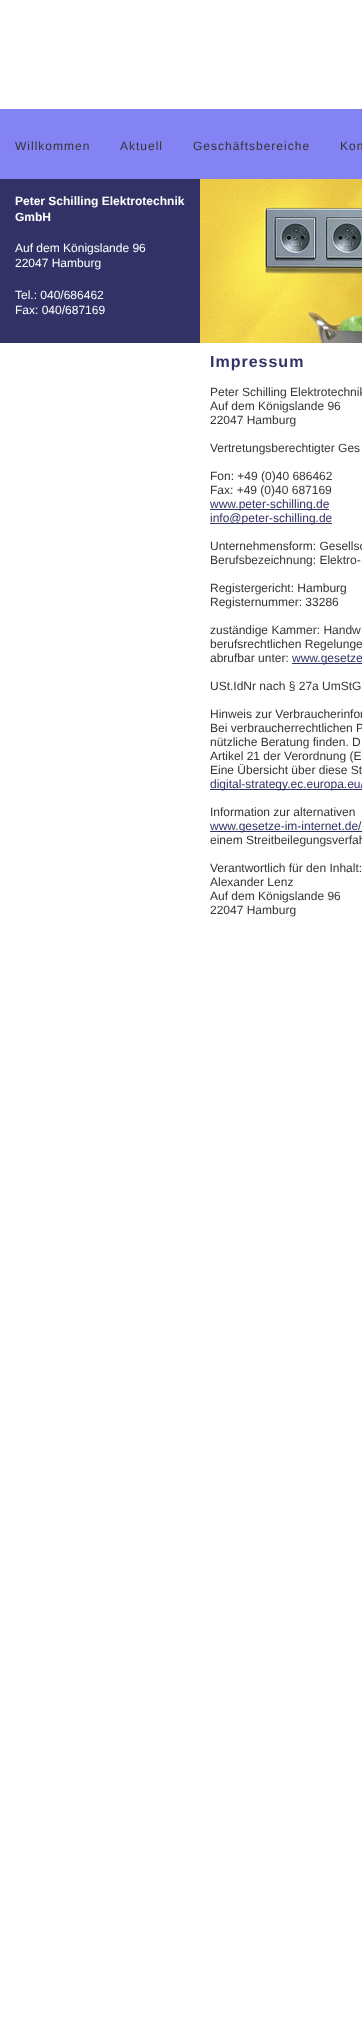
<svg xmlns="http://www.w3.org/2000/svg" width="362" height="2038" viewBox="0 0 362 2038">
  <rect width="100%" height="100%" fill="#fff"/>
  <path d="M0 109h362v70H0z" fill="#8383f3"/>
  <path d="M0 179h200v164H0z" fill="#323267"/>
  <image x="200" y="179" width="162" height="164" href="img/1.png"/>
  <path d="M210 509h119v1H210z" fill="#323267"/>
  <path d="M210 523h122v1H210z" fill="#323267"/>
  <path d="M292 663h70v1H292z" fill="#323267"/>
  <path d="M210 789h152v1H210z" fill="#323267"/>
  <path d="M210 831h152v1H210z" fill="#323267"/>
  <g font-family="Liberation Sans" font-size="12" letter-spacing="1" fill="#343434">
    <text x="15" y="150">Willkommen</text>
    <text x="120" y="150">Aktuell</text>
    <text x="193" y="150">Geschäftsbereiche</text>
    <text x="340" y="150">Kon</text>
  </g>
  <g font-family="Liberation Sans" font-size="12" font-weight="bold" fill="#fff">
    <text x="15" y="205">Peter Schilling Elektrotechnik</text>
    <text x="15" y="221">GmbH</text>
  </g>
  <g font-family="Liberation Sans" font-size="12" fill="#fff">
    <text x="15" y="252">Auf dem Königslande 96</text>
    <text x="15" y="267">22047 Hamburg</text>
    <text x="15" y="299">Tel.: 040/686462</text>
    <text x="15" y="314">Fax: 040/687169</text>
  </g>
  <text x="210" y="367" font-family="Liberation Sans" font-size="16" font-weight="bold" letter-spacing="1" fill="#323267">Impressum</text>
  <g font-family="Liberation Sans" font-size="12" fill="#343434">
    <text x="210" y="396">Peter Schilling Elektrotechnik</text>
    <text x="210" y="410">Auf dem Königslande 96</text>
    <text x="210" y="424">22047 Hamburg</text>
    <text x="210" y="452">Vertretungsberechtigter Ges</text>
    <text x="210" y="480">Fon: +49 (0)40 686462</text>
    <text x="210" y="494">Fax: +49 (0)40 687169</text>
  </g>
  <g font-family="Liberation Sans" font-size="12" fill="#323267">
    <text x="210" y="508">www.peter-schilling.de</text>
    <text x="210" y="522">info@peter-schilling.de</text>
  </g>
  <g font-family="Liberation Sans" font-size="12" fill="#343434">
    <text x="210" y="550">Unternehmensform: Gesellsc</text>
    <text x="210" y="564">Berufsbezeichnung: Elektro-</text>
    <text x="210" y="592">Registergericht: Hamburg</text>
    <text x="210" y="606">Registernummer: 33286</text>
    <text x="210" y="634">zuständige Kammer: Handw</text>
    <text x="210" y="648">berufsrechtlichen Regelunge</text>
    <text x="210" y="662">abrufbar unter:</text>
  </g>
  <text x="292" y="662" font-family="Liberation Sans" font-size="12" fill="#323267">www.gesetze</text>
  <g font-family="Liberation Sans" font-size="12" fill="#343434">
    <text x="210" y="690">USt.IdNr nach § 27a UmStG</text>
    <text x="210" y="718">Hinweis zur Verbraucherinfor</text>
    <text x="210" y="732">Bei verbraucherrechtlichen P</text>
    <text x="210" y="746">nützliche Beratung finden. D</text>
    <text x="210" y="760">Artikel 21 der Verordnung (E</text>
    <text x="210" y="774">Eine Übersicht über diese St</text>
  </g>
  <text x="210" y="788" font-family="Liberation Sans" font-size="12" fill="#323267">digital-strategy.ec.europa.eu/</text>
  <text x="210" y="816" font-family="Liberation Sans" font-size="12" fill="#343434">Information zur alternativen</text>
  <text x="210" y="830" font-family="Liberation Sans" font-size="12" fill="#323267">www.gesetze-im-internet.de/</text>
  <g font-family="Liberation Sans" font-size="12" fill="#343434">
    <text x="210" y="844">einem Streitbeilegungsverfah</text>
    <text x="210" y="872">Verantwortlich für den Inhalt:</text>
    <text x="210" y="886">Alexander Lenz</text>
    <text x="210" y="900">Auf dem Königslande 96</text>
    <text x="210" y="914">22047 Hamburg</text>
  </g>
</svg>
